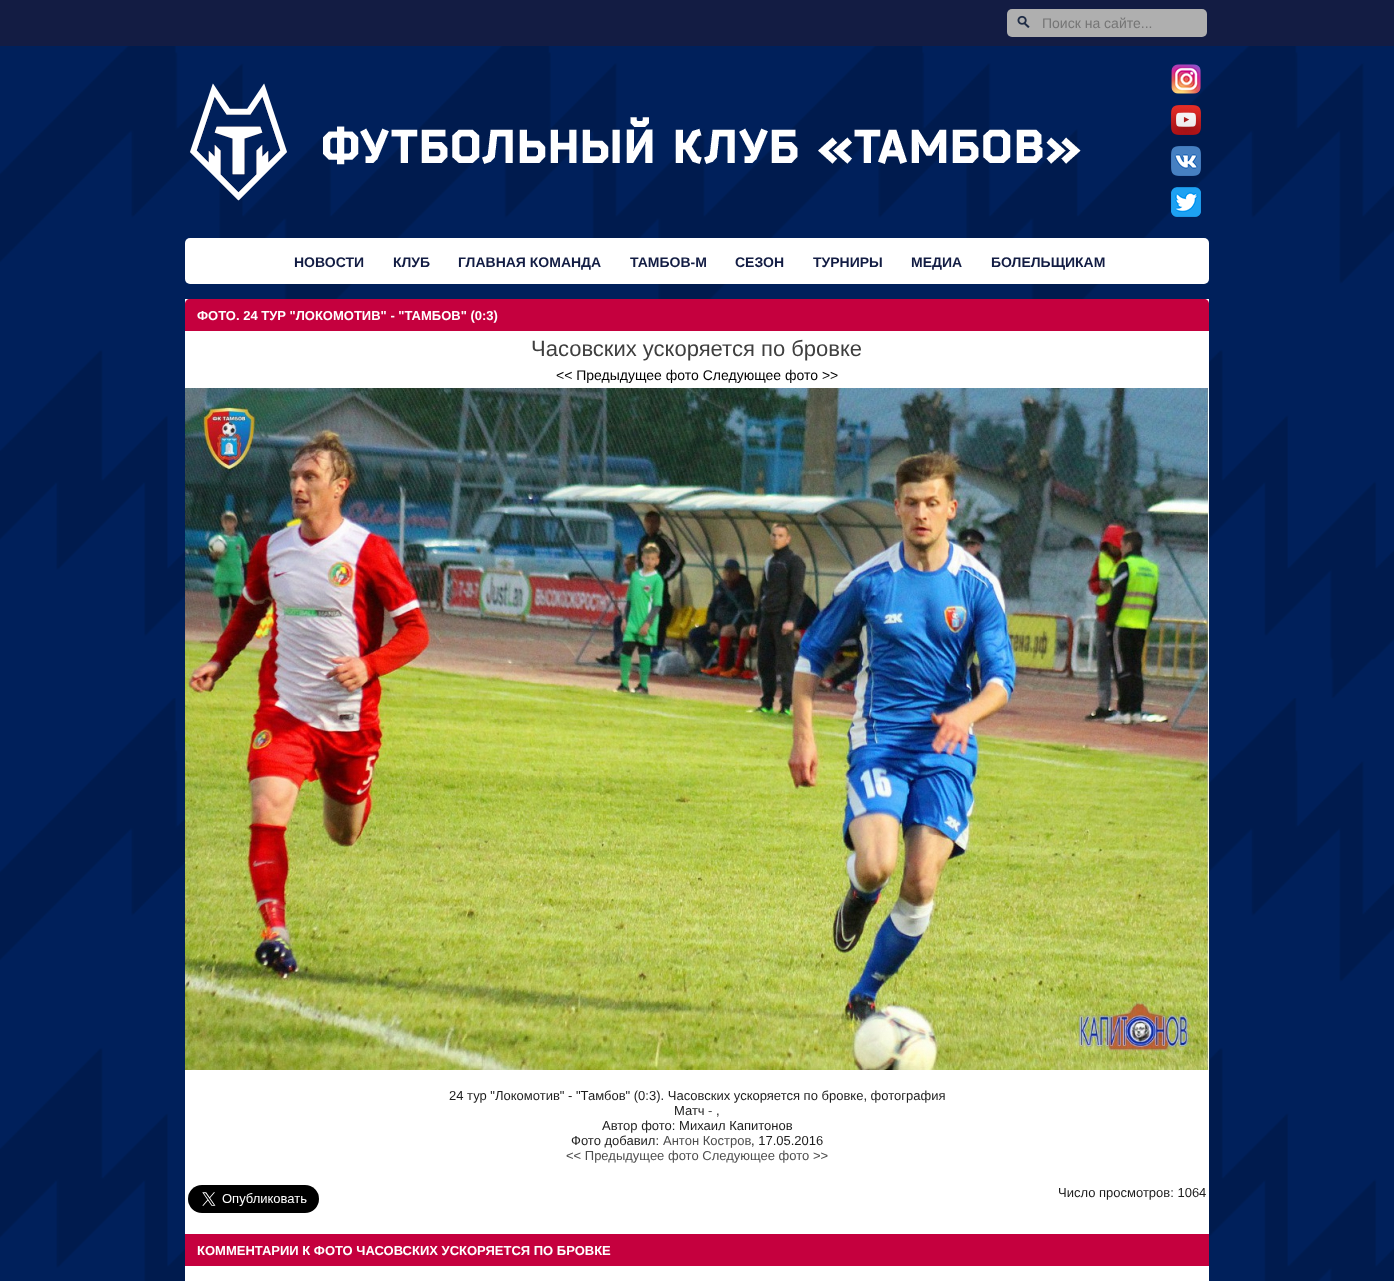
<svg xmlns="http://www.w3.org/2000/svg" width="1394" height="1281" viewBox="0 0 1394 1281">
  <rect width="100%" height="100%" fill="#fff"/>
  <image x="0" y="46" width="1394" height="1235" href="img/1.png"/>
  <path d="M0 0h1394v46H0z" fill="#131c43"/>
  <rect x="1007" y="9" width="200" height="28" rx="5" fill="#afafaf"/>
  <image x="1017" y="15" width="13" height="13" href="img/2.png"/>
  <image x="190" y="83" width="891" height="118" href="img/3.png"/>
  <image x="1171" y="64" width="30" height="30" href="img/4.png"/>
  <image x="1171" y="105" width="30" height="30" href="img/5.png"/>
  <image x="1171" y="146" width="30" height="30" href="img/6.png"/>
  <image x="1171" y="187" width="30" height="30" href="img/7.png"/>
  <rect x="185" y="238" width="1024" height="46" rx="5" fill="#fff"/>
  <path d="M185 299h1024v982H185z" fill="#fff"/>
  <path d="M190 299H1204C1207 299 1209 301 1209 304V331H185V304C185 301 187 299 190 299Z" fill="#c5003e"/>
  <image x="185" y="388" width="1024" height="682" href="img/8.png"/>
  <image x="188" y="1185" width="131" height="28" href="img/9.png"/>
  <path d="M185 1234h1024v32H185z" fill="#c5003e"/>
  <text x="1042" y="28" font-family="Liberation Sans" font-size="14" fill="#757575">Поиск на сайте...</text>
  <g font-family="Liberation Sans" font-size="14" font-weight="bold" fill="#121c43">
    <text x="294" y="267">НОВОСТИ</text>
    <text x="393" y="267">КЛУБ</text>
    <text x="458" y="267">ГЛАВНАЯ КОМАНДА</text>
    <text x="630" y="267">ТАМБОВ-М</text>
    <text x="735" y="267">СЕЗОН</text>
    <text x="813" y="267">ТУРНИРЫ</text>
    <text x="911" y="267">МЕДИА</text>
    <text x="991" y="267">БОЛЕЛЬЩИКАМ</text>
  </g>
  <text x="197" y="320" font-family="Liberation Sans" font-size="13" font-weight="bold" fill="#fff">ФОТО. 24 ТУР "ЛОКОМОТИВ" - "ТАМБОВ" (0:3)</text>
  <text x="531" y="356" font-family="Liberation Sans" font-size="22" fill="#3f3f3f">Часовских ускоряется по бровке</text>
  <text x="556" y="380" font-family="Liberation Sans" font-size="14" fill="#000">&lt;&lt; Предыдущее фото Следующее фото &gt;&gt;</text>
  <g font-family="Liberation Sans" font-size="13" fill="#1c1c1c">
    <text x="449" y="1100">24 тур "Локомотив" - "Тамбов" (0:3). Часовских ускоряется по бровке, фотография</text>
    <text x="674" y="1115">Матч</text>
  </g>
  <text x="708" y="1115" font-family="Liberation Sans" font-size="13" fill="#4d4d4d">-</text>
  <g font-family="Liberation Sans" font-size="13" fill="#1c1c1c">
    <text x="716" y="1115">,</text>
    <text x="602" y="1130">Автор фото: Михаил Капитонов</text>
    <text x="571" y="1145">Фото добавил:</text>
  </g>
  <text x="663" y="1145" font-family="Liberation Sans" font-size="13" fill="#4d4d4d">Антон Костров</text>
  <text x="751" y="1145" font-family="Liberation Sans" font-size="13" fill="#1c1c1c">, 17.05.2016</text>
  <text x="566" y="1160" font-family="Liberation Sans" font-size="13" fill="#4d4d4d">&lt;&lt; Предыдущее фото Следующее фото &gt;&gt;</text>
  <text x="1058" y="1197" font-family="Liberation Sans" font-size="13" fill="#1c1c1c">Число просмотров: 1064</text>
  <text x="197" y="1255" font-family="Liberation Sans" font-size="13" font-weight="bold" fill="#fff">КОММЕНТАРИИ К ФОТО ЧАСОВСКИХ УСКОРЯЕТСЯ ПО БРОВКЕ</text>
</svg>
